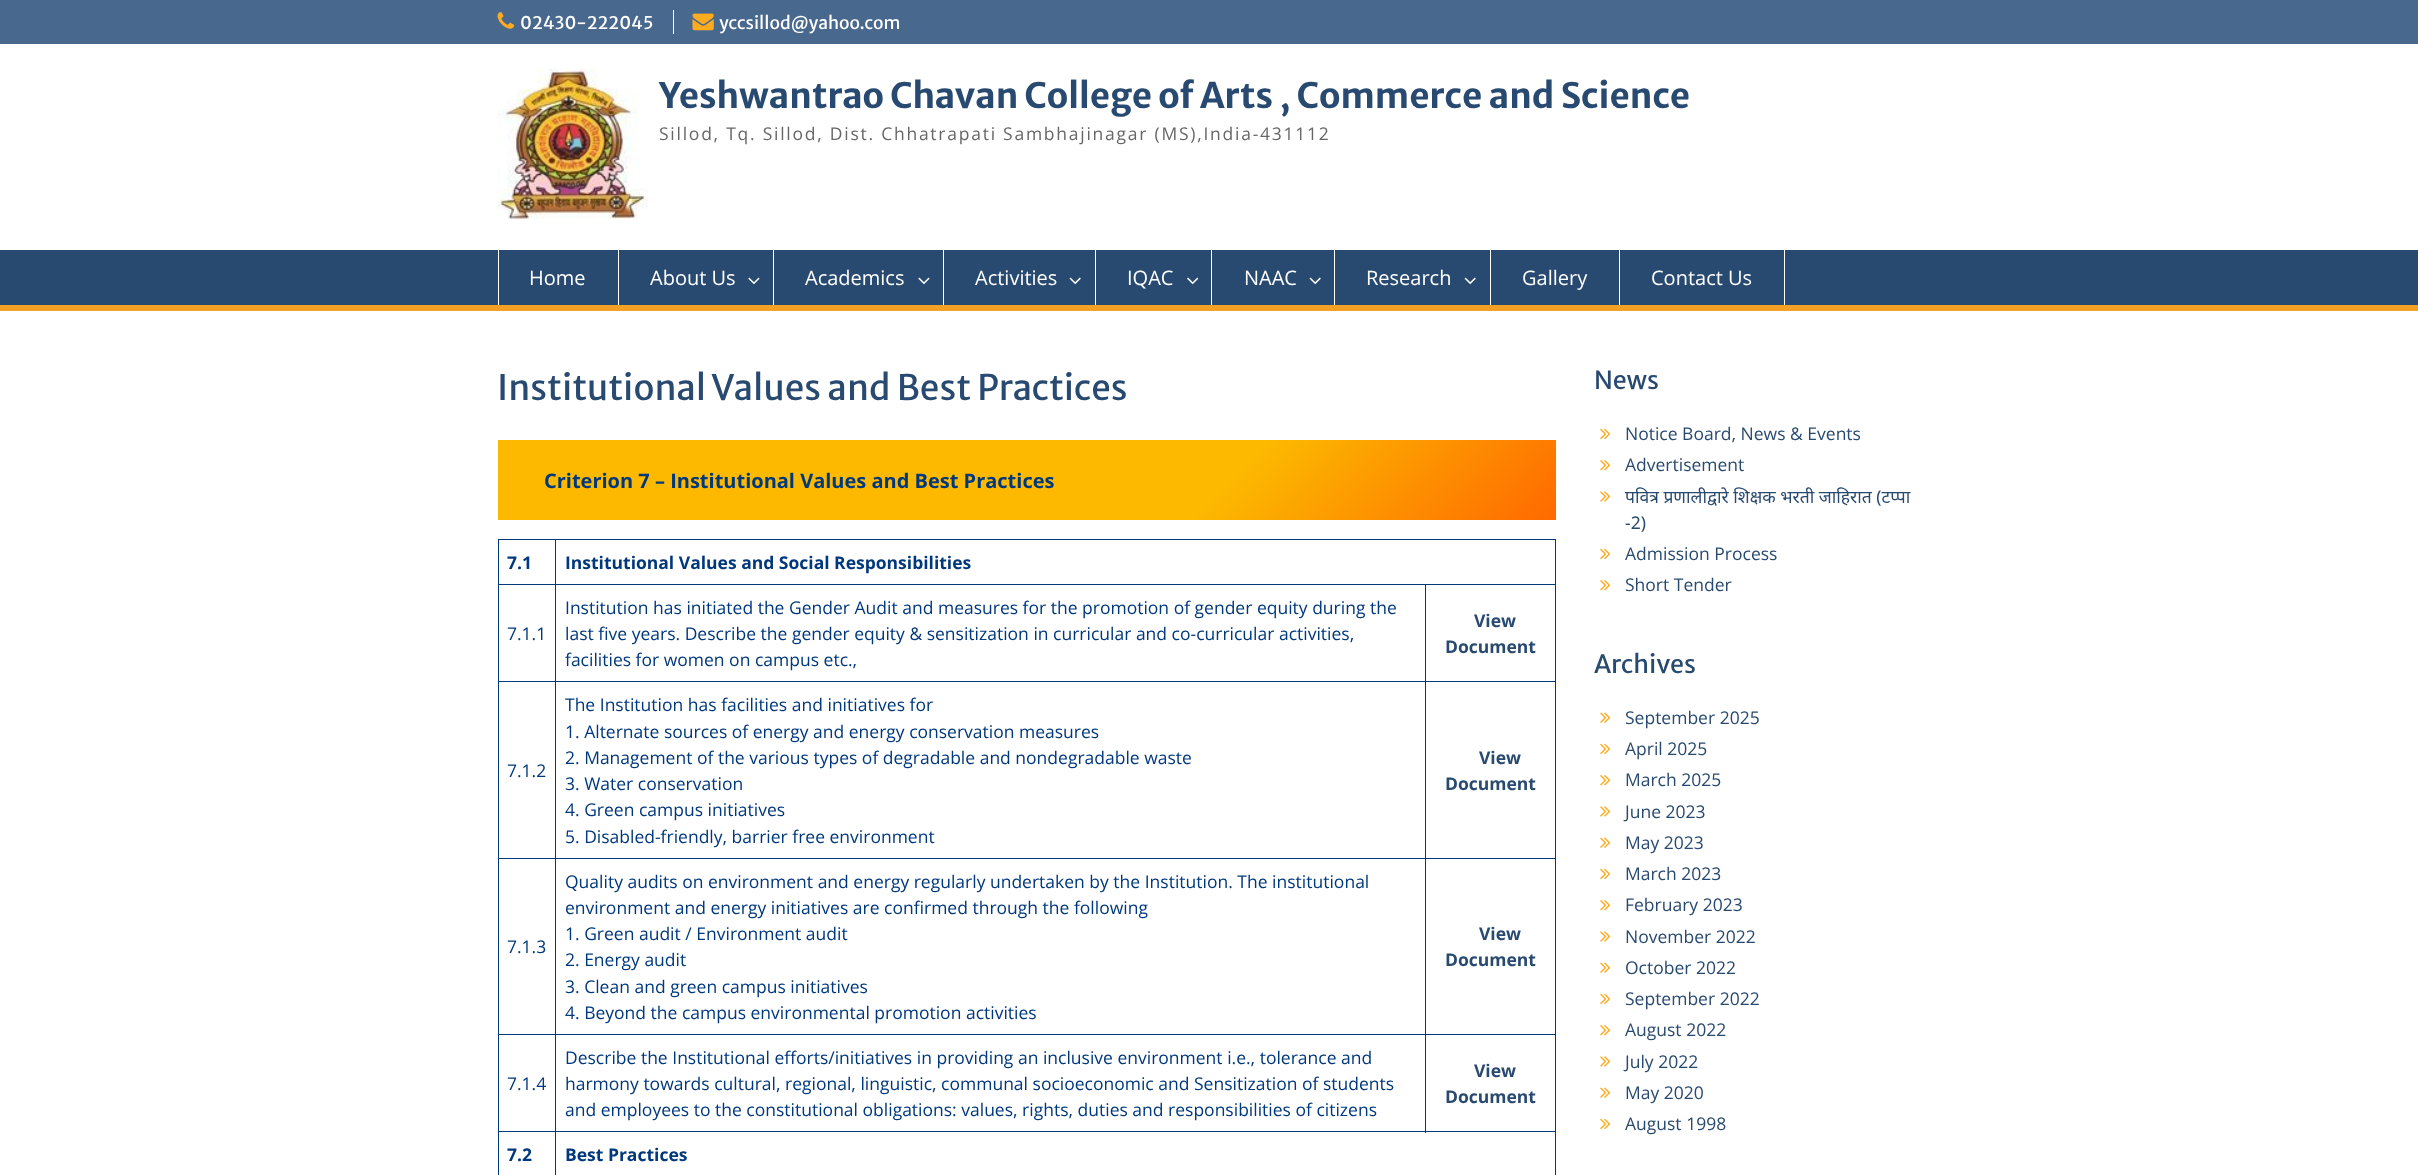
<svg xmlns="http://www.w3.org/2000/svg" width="2418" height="1175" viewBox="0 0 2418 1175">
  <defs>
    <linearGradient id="g1" gradientUnits="userSpaceOnUse" x1="742" y1="195" x2="1312" y2="765"><stop offset="0.68" stop-color="#fcb900"/><stop offset="1" stop-color="#ff6900"/></linearGradient>
  </defs>
  <rect width="100%" height="100%" fill="#fff"/>
  <path d="M0 0h2418v44H0z" fill="#49688e"/>
  <image x="497" y="12" width="18" height="17" href="img/1.png"/>
  <path d="M673 10h1v24H673z" fill="#fff"/>
  <image x="692" y="13" width="22" height="18" href="img/2.png"/>
  <image x="497" y="68" width="151" height="151" href="img/3.png"/>
  <path d="M0 250h2418v55H0z" fill="#294a70"/>
  <path d="M0 305h2418v6H0z" fill="#f4a024"/>
  <path d="M618 250h1v55H618z" fill="#fff"/>
  <path d="M498 250h1v55H498z" fill="#fff"/>
  <path d="M773 250h1v55H773z" fill="#fff"/>
  <image x="748" y="277" width="12" height="8" href="img/4.png"/>
  <path d="M943 250h1v55H943z" fill="#fff"/>
  <image x="918" y="277" width="12" height="8" href="img/4.png"/>
  <path d="M1095 250h1v55H1095z" fill="#fff"/>
  <image x="1069" y="277" width="12" height="8" href="img/5.png"/>
  <path d="M1211 250h1v55H1211z" fill="#fff"/>
  <image x="1187" y="277" width="12" height="8" href="img/6.png"/>
  <path d="M1334 250h1v55H1334z" fill="#fff"/>
  <image x="1309" y="277" width="12" height="8" href="img/5.png"/>
  <path d="M1490 250h1v55H1490z" fill="#fff"/>
  <image x="1464" y="277" width="12" height="8" href="img/5.png"/>
  <path d="M1619 250h1v55H1619z" fill="#fff"/>
  <path d="M1784 250h1v55H1784z" fill="#fff"/>
  <path d="M498 440h1058v80H498z" fill="url(#g1)"/>
  <path d="M555 539h1001v1H555z" fill="#00387d"/>
  <path d="M1425 584h131v1H1425z" fill="#00387d"/>
  <path d="M1425 681h131v1H1425z" fill="#00387d"/>
  <path d="M1425 858h131v1H1425z" fill="#00387d"/>
  <path d="M1425 1034h131v1H1425z" fill="#00387d"/>
  <path d="M555 1131h1001v1H555z" fill="#00387d"/>
  <path d="M1425 1034h1v99H1425z" fill="#00387d"/>
  <path d="M555 1034h871v1H555z" fill="#00387d"/>
  <path d="M1425 858h1v177H1425z" fill="#00387d"/>
  <path d="M555 858h871v1H555z" fill="#00387d"/>
  <path d="M1425 681h1v178H1425z" fill="#00387d"/>
  <path d="M555 681h871v1H555z" fill="#00387d"/>
  <path d="M1425 584h1v99H1425z" fill="#00387d"/>
  <path d="M555 584h871v1H555z" fill="#00387d"/>
  <path d="M555 1131h1v44H555z" fill="#00387d"/>
  <path d="M498 1131h58v1H498z" fill="#00387d"/>
  <path d="M555 1034h1v99H555z" fill="#00387d"/>
  <path d="M498 1034h58v1H498z" fill="#00387d"/>
  <path d="M555 858h1v177H555z" fill="#00387d"/>
  <path d="M498 858h58v1H498z" fill="#00387d"/>
  <path d="M555 681h1v178H555z" fill="#00387d"/>
  <path d="M498 681h58v1H498z" fill="#00387d"/>
  <path d="M555 584h1v99H555z" fill="#00387d"/>
  <path d="M498 584h58v1H498z" fill="#00387d"/>
  <path d="M555 539h1v46H555z" fill="#00387d"/>
  <path d="M498 539h58v1H498z" fill="#00387d"/>
  <path d="M498 1131h1v44H498z" fill="#00387d"/>
  <path d="M498 1034h1v99H498z" fill="#00387d"/>
  <path d="M498 858h1v177H498z" fill="#00387d"/>
  <path d="M498 681h1v178H498z" fill="#00387d"/>
  <path d="M498 584h1v99H498z" fill="#00387d"/>
  <path d="M498 539h1v46H498z" fill="#00387d"/>
  <path d="M1555 1131h1v44H1555z" fill="#00387d"/>
  <path d="M1555 1034h1v99H1555z" fill="#00387d"/>
  <path d="M1555 858h1v177H1555z" fill="#00387d"/>
  <path d="M1555 681h1v178H1555z" fill="#00387d"/>
  <path d="M1555 584h1v99H1555z" fill="#00387d"/>
  <path d="M1555 539h1v46H1555z" fill="#00387d"/>
  <image x="1600" y="428" width="11" height="12" href="img/7.png"/>
  <image x="1600" y="460" width="11" height="11" href="img/8.png"/>
  <image x="1600" y="491" width="11" height="11" href="img/9.png"/>
  <image x="1600" y="548" width="11" height="12" href="img/7.png"/>
  <image x="1600" y="580" width="11" height="11" href="img/8.png"/>
  <image x="1600" y="712" width="11" height="11" href="img/10.png"/>
  <image x="1600" y="743" width="11" height="12" href="img/7.png"/>
  <image x="1600" y="775" width="11" height="11" href="img/8.png"/>
  <image x="1600" y="806" width="11" height="11" href="img/9.png"/>
  <image x="1600" y="837" width="11" height="11" href="img/10.png"/>
  <image x="1600" y="868" width="11" height="12" href="img/7.png"/>
  <image x="1600" y="900" width="11" height="11" href="img/8.png"/>
  <image x="1600" y="931" width="11" height="11" href="img/9.png"/>
  <image x="1600" y="962" width="11" height="11" href="img/10.png"/>
  <image x="1600" y="993" width="11" height="12" href="img/7.png"/>
  <image x="1600" y="1025" width="11" height="11" href="img/8.png"/>
  <image x="1600" y="1056" width="11" height="11" href="img/9.png"/>
  <image x="1600" y="1087" width="11" height="11" href="img/10.png"/>
  <image x="1600" y="1118" width="11" height="12" href="img/7.png"/>
  <g font-family="Merriweather Sans" font-size="17.5" fill="#fff">
    <text x="520" y="29">02430-222045</text>
    <text x="719" y="29">yccsillod@yahoo.com</text>
  </g>
  <text x="659" y="108" font-family="Merriweather Sans" font-size="35" font-weight="bold" fill="#294a70">Yeshwantrao Chavan College of Arts , Commerce and Science</text>
  <text x="659" y="140" font-family="Open Sans" font-size="17.5" letter-spacing="1.75" fill="#666">Sillod, Tq. Sillod, Dist. Chhatrapati Sambhajinagar (MS),India-431112</text>
  <g font-family="Open Sans" font-size="20" fill="#fff">
    <text x="529" y="285">Home</text>
    <text x="650" y="285">About Us</text>
    <text x="805" y="285">Academics</text>
    <text x="975" y="285">Activities</text>
    <text x="1127" y="285">IQAC</text>
    <text x="1244" y="285">NAAC</text>
    <text x="1366" y="285">Research</text>
    <text x="1522" y="285">Gallery</text>
    <text x="1651" y="285">Contact Us</text>
  </g>
  <text x="497" y="400" font-family="Merriweather Sans" font-size="35" fill="#294a70">Institutional Values and Best Practices</text>
  <text x="544" y="488" font-family="Open Sans" font-size="20" font-weight="bold" fill="#00387d">Criterion 7 – Institutional Values and Best Practices</text>
  <g font-family="Open Sans" font-size="17.5" font-weight="bold" fill="#00387d">
    <text x="507" y="569">7.1</text>
    <text x="565" y="569">Institutional Values and Social Responsibilities</text>
  </g>
  <g font-family="Open Sans" font-size="17.5" fill="#00387d">
    <text x="507" y="640">7.1.1</text>
    <text x="565" y="614">Institution has initiated the Gender Audit and measures for the promotion of gender equity during the</text>
    <text x="565" y="640">last five years. Describe the gender equity &amp; sensitization in curricular and co-curricular activities,</text>
    <text x="565" y="666">facilities for women on campus etc.,</text>
  </g>
  <g font-family="Open Sans" font-size="17.5" font-weight="bold" fill="#294a70">
    <text x="1474" y="627">View</text>
    <text x="1445" y="653">Document</text>
  </g>
  <g font-family="Open Sans" font-size="17.5" fill="#00387d">
    <text x="507" y="777">7.1.2</text>
    <text x="565" y="711">The Institution has facilities and initiatives for</text>
    <text x="565" y="738">1. Alternate sources of energy and energy conservation measures</text>
    <text x="565" y="764">2. Management of the various types of degradable and nondegradable waste</text>
    <text x="565" y="790">3. Water conservation</text>
    <text x="565" y="816">4. Green campus initiatives</text>
    <text x="565" y="843">5. Disabled-friendly, barrier free environment</text>
  </g>
  <g font-family="Open Sans" font-size="17.5" font-weight="bold" fill="#294a70">
    <text x="1479" y="764">View</text>
    <text x="1445" y="790">Document</text>
  </g>
  <g font-family="Open Sans" font-size="17.5" fill="#00387d">
    <text x="507" y="953">7.1.3</text>
    <text x="565" y="888">Quality audits on environment and energy regularly undertaken by the Institution. The institutional</text>
    <text x="565" y="914">environment and energy initiatives are confirmed through the following</text>
    <text x="565" y="940">1. Green audit / Environment audit</text>
    <text x="565" y="966">2. Energy audit</text>
    <text x="565" y="993">3. Clean and green campus initiatives</text>
    <text x="565" y="1019">4. Beyond the campus environmental promotion activities</text>
  </g>
  <g font-family="Open Sans" font-size="17.5" font-weight="bold" fill="#294a70">
    <text x="1479" y="940">View</text>
    <text x="1445" y="966">Document</text>
  </g>
  <g font-family="Open Sans" font-size="17.5" fill="#00387d">
    <text x="507" y="1090">7.1.4</text>
    <text x="565" y="1064">Describe the Institutional efforts/initiatives in providing an inclusive environment i.e., tolerance and</text>
    <text x="565" y="1090">harmony towards cultural, regional, linguistic, communal socioeconomic and Sensitization of students</text>
    <text x="565" y="1116">and employees to the constitutional obligations: values, rights, duties and responsibilities of citizens</text>
  </g>
  <g font-family="Open Sans" font-size="17.5" font-weight="bold" fill="#294a70">
    <text x="1474" y="1077">View</text>
    <text x="1445" y="1103">Document</text>
  </g>
  <g font-family="Open Sans" font-size="17.5" font-weight="bold" fill="#00387d">
    <text x="507" y="1161">7.2</text>
    <text x="565" y="1161">Best Practices</text>
  </g>
  <text x="1594" y="389" font-family="Merriweather Sans" font-size="25" fill="#294a70">News</text>
  <g font-family="Open Sans" font-size="17.5" fill="#294a70">
    <text x="1625" y="440">Notice Board, News &amp; Events</text>
    <text x="1625" y="471">Advertisement</text>
  </g>
  <g font-family="Noto Sans" font-size="17.5" fill="#294a70">
    <text x="1625" y="503">पवित्र प्रणालीद्वारे शिक्षक भरती जाहिरात (टप्पा</text>
    <text x="1625" y="529">-2)</text>
  </g>
  <g font-family="Open Sans" font-size="17.5" fill="#294a70">
    <text x="1625" y="560">Admission Process</text>
    <text x="1625" y="591">Short Tender</text>
  </g>
  <text x="1594" y="673" font-family="Merriweather Sans" font-size="25" fill="#294a70">Archives</text>
  <g font-family="Open Sans" font-size="17.5" fill="#294a70">
    <text x="1625" y="724">September 2025</text>
    <text x="1625" y="755">April 2025</text>
    <text x="1625" y="786">March 2025</text>
    <text x="1625" y="818">June 2023</text>
    <text x="1625" y="849">May 2023</text>
    <text x="1625" y="880">March 2023</text>
    <text x="1625" y="911">February 2023</text>
    <text x="1625" y="943">November 2022</text>
    <text x="1625" y="974">October 2022</text>
    <text x="1625" y="1005">September 2022</text>
    <text x="1625" y="1036">August 2022</text>
    <text x="1625" y="1068">July 2022</text>
    <text x="1625" y="1099">May 2020</text>
    <text x="1625" y="1130">August 1998</text>
  </g>
</svg>
